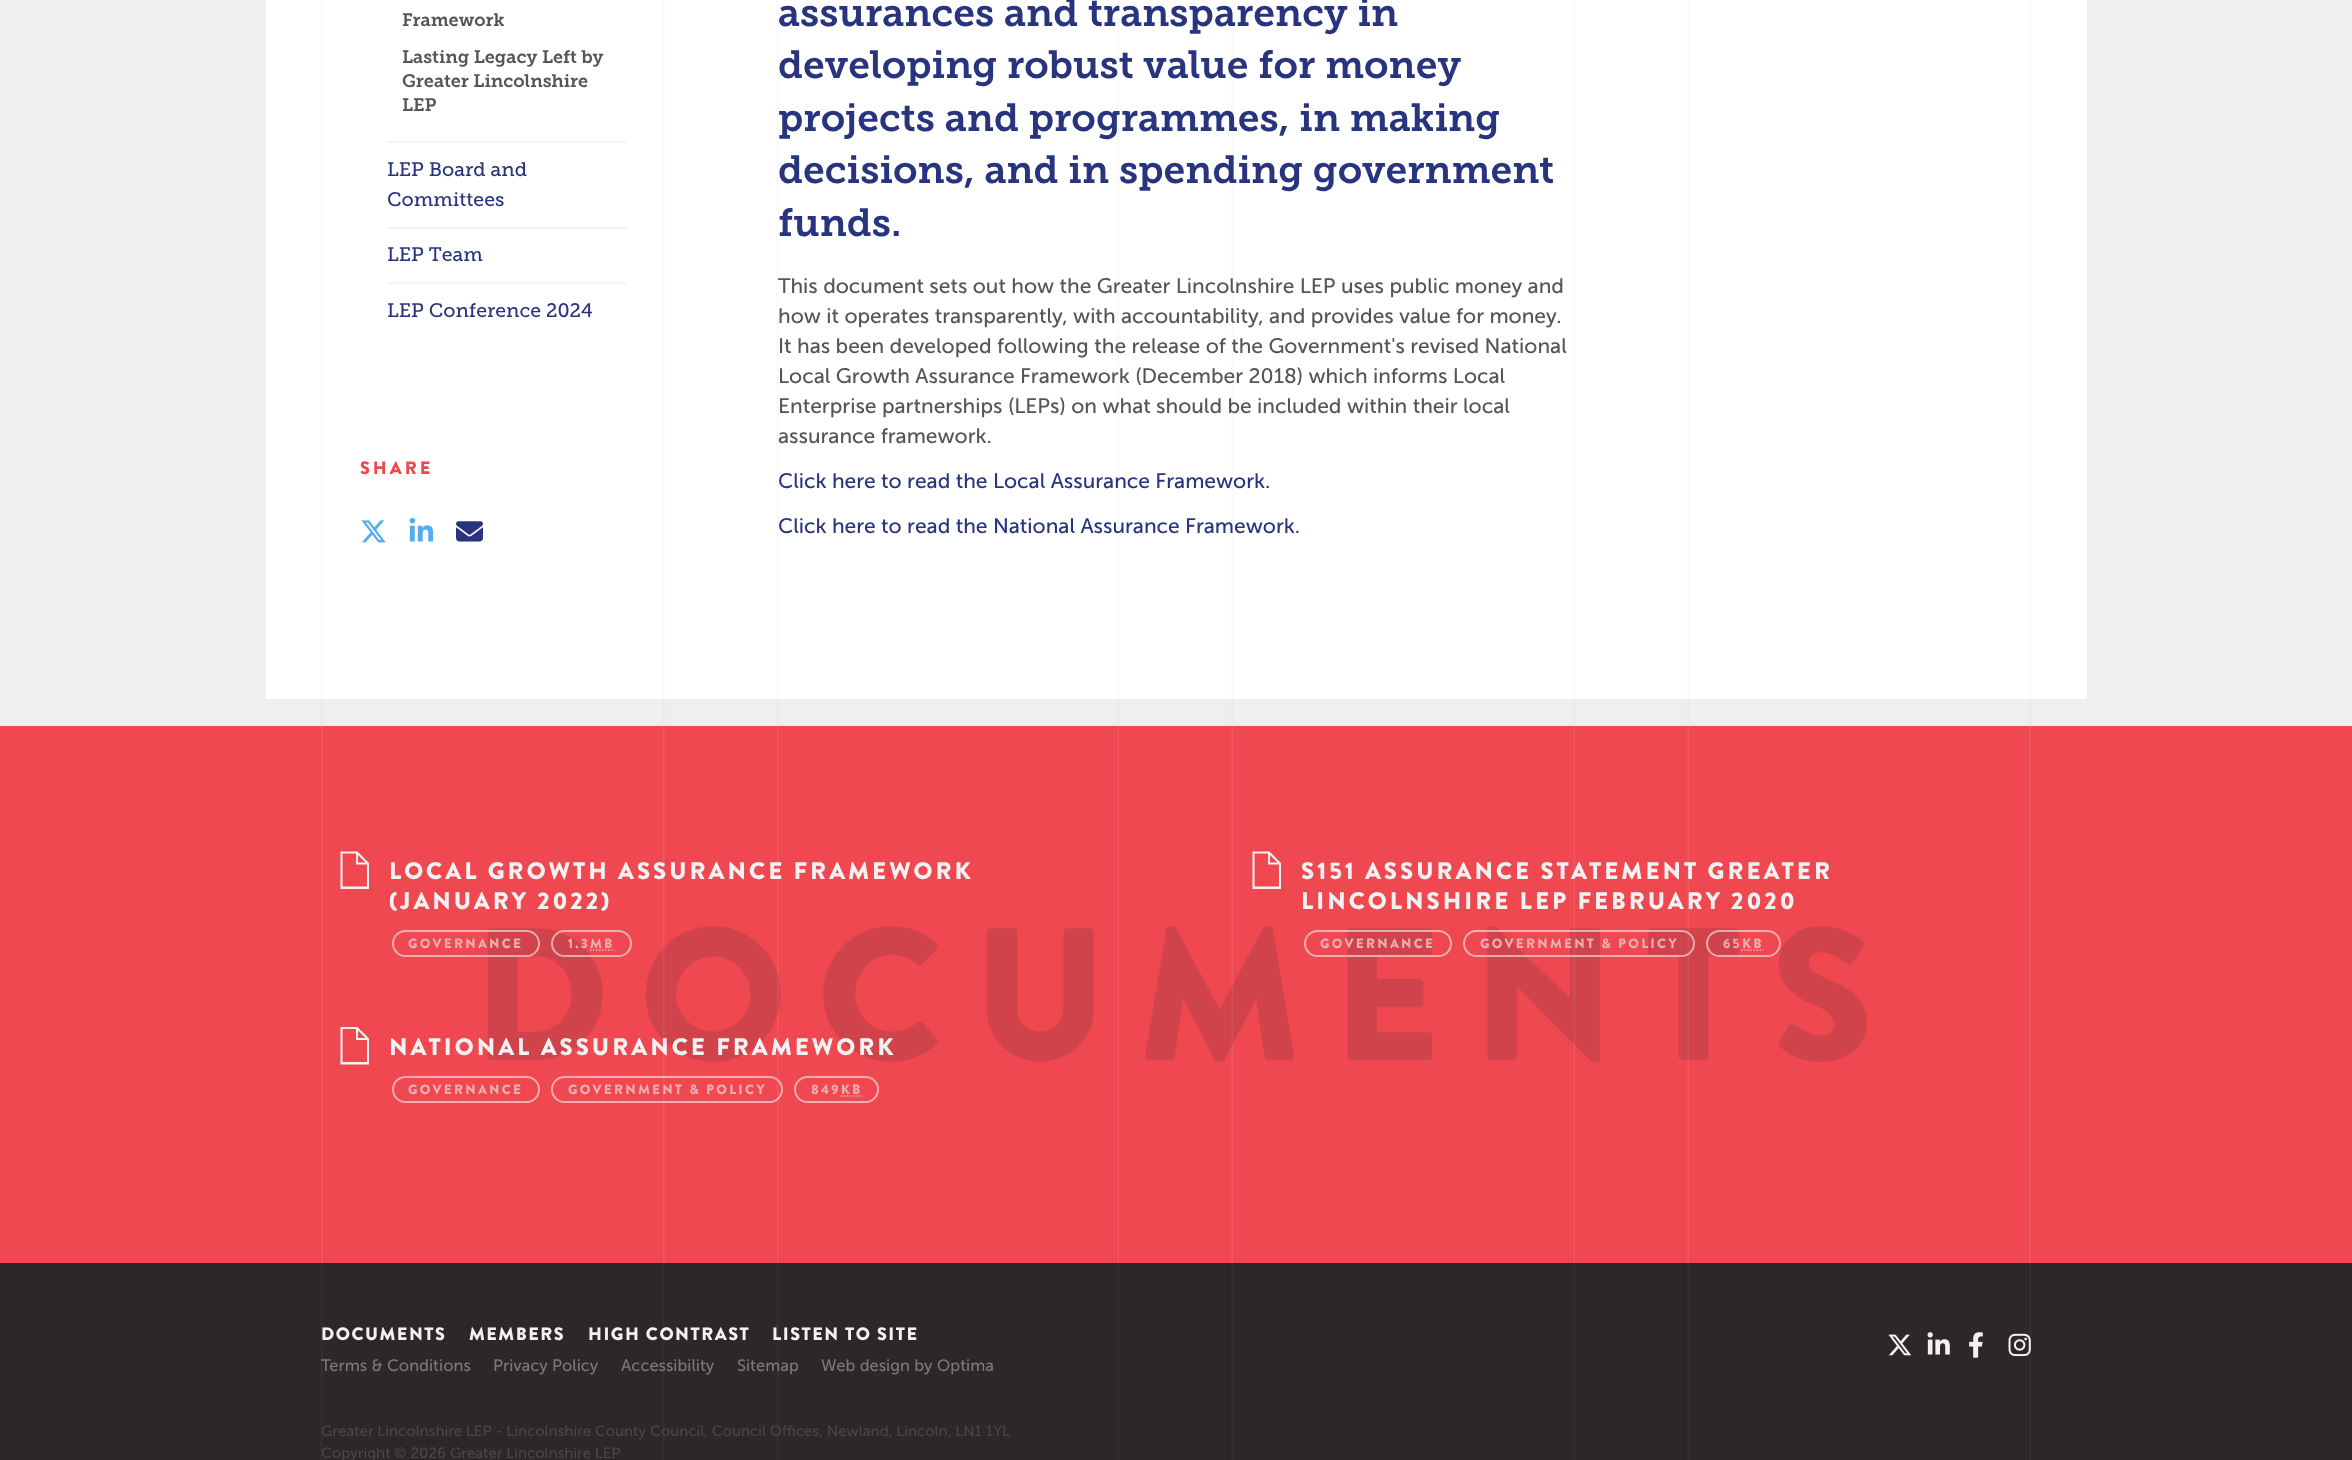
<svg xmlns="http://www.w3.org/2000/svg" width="2352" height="1460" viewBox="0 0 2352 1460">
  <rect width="100%" height="100%" fill="#efefef"/>
  <image x="321" y="699" width="1710" height="27" href="img/1.png"/>
  <path d="M266 0h1821v699H266z" fill="#fff"/>
  <image x="321" y="0" width="1710" height="699" href="img/2.png"/>
  <path d="M387 141h240v2H387z" fill="#f6f5f6"/>
  <path d="M387 227h240v2H387z" fill="#f6f5f6"/>
  <path d="M387 282h240v2H387z" fill="#f6f5f6"/>
  <image x="361" y="520" width="25" height="23" href="img/3.png"/>
  <image x="409" y="517" width="25" height="25" href="img/4.png"/>
  <image x="456" y="521" width="27" height="21" href="img/5.png"/>
  <path d="M0 726h2352v537H0z" fill="#ef4851"/>
  <image x="321" y="726" width="1710" height="537" href="img/6.png"/>
  <image x="487" y="926" width="1380" height="136" href="img/7.png"/>
  <path d="M357.5 851.5H340.5V889H369V863ZM358 855L365.5 862.5H358ZM342.5 886.5V853.5H356V864.5H367V886.5Z" fill="#f2f2f2"/>
  <rect x="393" y="931" width="146" height="25" rx="12.5" fill="none" stroke="#f2f2f299" stroke-width="2"/>
  <rect x="552" y="931" width="79" height="25" rx="12.5" fill="none" stroke="#f2f2f299" stroke-width="2"/>
  <path d="M590 950H614.5" fill="none" stroke="#f1aeb2" stroke-width="1.5" stroke-dasharray="1.5 1.5"/>
  <path d="M1269.5 851.5H1252.5V889H1281V863ZM1270 855L1277.5 862.5H1270ZM1254.5 886.5V853.5H1268V864.5H1279V886.5Z" fill="#f2f2f2"/>
  <rect x="1305" y="931" width="146" height="25" rx="12.5" fill="none" stroke="#f2f2f299" stroke-width="2"/>
  <rect x="1464" y="931" width="230" height="25" rx="12.5" fill="none" stroke="#f2f2f299" stroke-width="2"/>
  <rect x="1707" y="931" width="73" height="25" rx="12.5" fill="none" stroke="#f2f2f299" stroke-width="2"/>
  <path d="M1741.5 950H1763.5" fill="none" stroke="#f1aeb2" stroke-width="1.5" stroke-dasharray="1.5 1.5"/>
  <path d="M357.5 1027H340.5V1064.5H369V1038.5ZM358 1030.5L365.5 1038H358ZM342.5 1062V1029H356V1040H367V1062Z" fill="#f2f2f2"/>
  <rect x="393" y="1077" width="146" height="25" rx="12.5" fill="none" stroke="#f1aeb2" stroke-width="2"/>
  <rect x="552" y="1077" width="230" height="25" rx="12.5" fill="none" stroke="#f2f2f299" stroke-width="2"/>
  <rect x="795" y="1077" width="83" height="25" rx="12.5" fill="none" stroke="#f1aeb2" stroke-width="2"/>
  <path d="M840.5 1096H862.5" fill="none" stroke="#f1aeb2" stroke-width="1.5" stroke-dasharray="1.5 1.5"/>
  <path d="M0 1263h2352v197H0z" fill="#2d262a"/>
  <image x="321" y="1263" width="1710" height="197" href="img/8.png"/>
  <image x="1888" y="1334" width="24" height="22" href="img/9.png"/>
  <image x="1927" y="1332" width="23" height="23" href="img/10.png"/>
  <image x="1969" y="1332" width="14" height="26" href="img/11.png"/>
  <image x="2008" y="1333" width="23" height="24" href="img/12.png"/>
  <g font-family="'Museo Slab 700'" font-size="18" font-weight="600" fill="#555">
    <text x="402" y="26">Framework</text>
    <text x="402" y="63">Lasting Legacy Left by</text>
    <text x="402" y="87">Greater Lincolnshire</text>
    <text x="402" y="111">LEP</text>
  </g>
  <g font-family="'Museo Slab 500'" font-size="19.5" fill="#28347e">
    <text x="387" y="176">LEP Board and</text>
    <text x="387" y="206">Committees</text>
    <text x="387" y="261">LEP Team</text>
    <text x="387" y="317">LEP Conference 2024</text>
  </g>
  <text x="360" y="474" font-family="Brandon Grotesque" font-size="18" font-weight="900" letter-spacing="3" fill="#ef4851">SHARE</text>
  <g font-family="'Museo Slab 700'" font-size="39" font-weight="600" fill="#28347e">
    <text x="778" y="26">assurances and transparency in</text>
    <text x="778" y="78">developing robust value for money</text>
    <text x="778" y="131">projects and programmes, in making</text>
    <text x="778" y="183">decisions, and in spending government</text>
    <text x="778" y="236">funds.</text>
  </g>
  <g font-family="'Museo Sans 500'" font-size="21" fill="#555">
    <text x="778" y="293">This document sets out how the Greater Lincolnshire LEP uses public money and</text>
    <text x="778" y="323">how it operates transparently, with accountability, and provides value for money.</text>
    <text x="778" y="353">It has been developed following the release of the Government's revised National</text>
    <text x="778" y="383">Local Growth Assurance Framework (December 2018) which informs Local</text>
    <text x="778" y="413">Enterprise partnerships (LEPs) on what should be included within their local</text>
    <text x="778" y="443">assurance framework.</text>
  </g>
  <g font-family="'Museo Sans 500'" font-size="21" fill="#28347e">
    <text x="778" y="488">Click here to read the Local Assurance Framework.</text>
    <text x="778" y="533">Click here to read the National Assurance Framework.</text>
  </g>
  <g font-family="Brandon Grotesque" font-size="24" font-weight="900" letter-spacing="3" fill="#f2f2f2">
    <text x="389" y="879">LOCAL GROWTH ASSURANCE FRAMEWORK</text>
    <text x="389" y="909">(JANUARY 2022)</text>
  </g>
  <g font-family="Brandon Grotesque" font-size="13.5" font-weight="900" letter-spacing="2.25" fill="#edadb1">
    <text x="408" y="948">GOVERNANCE</text>
    <text x="568" y="948">1.3</text>
    <text x="590" y="948">MB</text>
  </g>
  <g font-family="Brandon Grotesque" font-size="24" font-weight="900" letter-spacing="3" fill="#f2f2f2">
    <text x="1301" y="879">S151 ASSURANCE STATEMENT GREATER</text>
    <text x="1301" y="909">LINCOLNSHIRE LEP FEBRUARY 2020</text>
  </g>
  <g font-family="Brandon Grotesque" font-size="13.5" font-weight="900" letter-spacing="2.25" fill="#edadb1">
    <text x="1320" y="948">GOVERNANCE</text>
    <text x="1480" y="948">GOVERNMENT &amp; POLICY</text>
  </g>
  <text x="1723" y="948" font-family="Brandon Grotesque" font-size="13.5" font-weight="900" letter-spacing="2.25" fill="#e5acb0">65</text>
  <text x="1742" y="948" font-family="Brandon Grotesque" font-size="13.5" font-weight="900" letter-spacing="2.25" fill="#edadb1">KB</text>
  <text x="389" y="1055" font-family="Brandon Grotesque" font-size="24" font-weight="900" letter-spacing="3" fill="#f2f2f2">NATIONAL ASSURANCE FRAMEWORK</text>
  <g font-family="Brandon Grotesque" font-size="13.5" font-weight="900" letter-spacing="2.25" fill="#edadb1">
    <text x="408" y="1094">GOVERNANCE</text>
    <text x="568" y="1094">GOVERNMENT &amp; POLICY</text>
    <text x="811" y="1094">849KB</text>
  </g>
  <g font-family="Brandon Grotesque" font-size="18" font-weight="900" letter-spacing="1.5" fill="#f2f2f2">
    <text x="321" y="1340">DOCUMENTS</text>
    <text x="469" y="1340">MEMBERS</text>
    <text x="588" y="1340">HIGH CONTRAST</text>
    <text x="772" y="1340">LISTEN TO SITE</text>
  </g>
  <g font-family="'Museo Sans 500'" font-size="16.5" fill="#7c787a">
    <text x="321" y="1371">Terms &amp; Conditions</text>
    <text x="493" y="1371">Privacy Policy</text>
    <text x="621" y="1371">Accessibility</text>
    <text x="737" y="1371">Sitemap</text>
    <text x="821" y="1371">Web design by Optima</text>
  </g>
  <g font-family="'Museo Sans 500'" font-size="15" fill="#494748">
    <text x="321" y="1436">Greater Lincolnshire LEP - Lincolnshire County Council, Council Offices, Newland, Lincoln, LN1 1YL</text>
    <text x="321" y="1458">Copyright © 2026 Greater Lincolnshire LEP</text>
  </g>
</svg>
